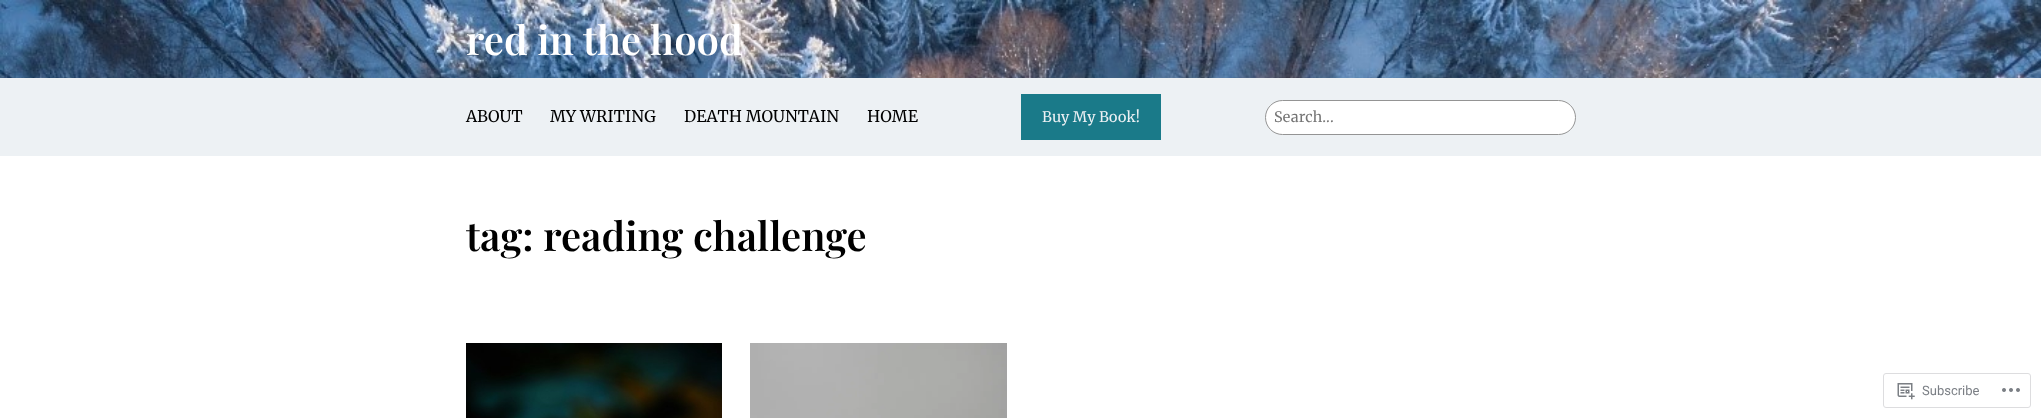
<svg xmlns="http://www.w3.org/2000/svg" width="2041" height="418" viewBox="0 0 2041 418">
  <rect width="100%" height="100%" fill="#fff"/>
  <image x="0" y="0" width="2041" height="78" href="img/1.png"/>
  <path d="M0 78h2041v78H0z" fill="#edf1f4"/>
  <path d="M1021 94h140v46H1021z" fill="#1a7a89"/>
  <rect x="1265.5" y="100.5" width="310" height="34" rx="17" fill="#fff" stroke="#949494"/>
  <image x="466" y="343" width="256" height="75" href="img/2.png"/>
  <image x="750" y="343" width="257" height="75" href="img/3.png"/>
  <rect x="1883.5" y="373.5" width="147" height="34" rx="2.5" fill="none" stroke="#dddddf"/>
  <image x="1897" y="383" width="18" height="17" href="img/4.png"/>
  <image x="2002" y="388" width="18" height="4" href="img/5.png"/>
  <text x="466" y="55" font-family="Playfair Display" font-size="40" font-weight="600" fill="#fff">red in the hood</text>
  <g font-family="Merriweather" font-size="16" fill="#000">
    <text x="466" y="122">ABOUT</text>
    <text x="550" y="122">MY WRITING</text>
    <text x="684" y="122">DEATH MOUNTAIN</text>
    <text x="867" y="122">HOME</text>
  </g>
  <text x="1042" y="122" font-family="Merriweather" font-size="14.5" fill="#edf1f4">Buy My Book!</text>
  <text x="1274" y="122" font-family="Merriweather" font-size="14.5" fill="#757575">Search...</text>
  <text x="466" y="251" font-family="Playfair Display" font-size="40" font-weight="600" fill="#000">tag: reading challenge</text>
  <text x="1922" y="395" font-family="Roboto" font-size="13" fill="#7b7f85">Subscribe</text>
</svg>
